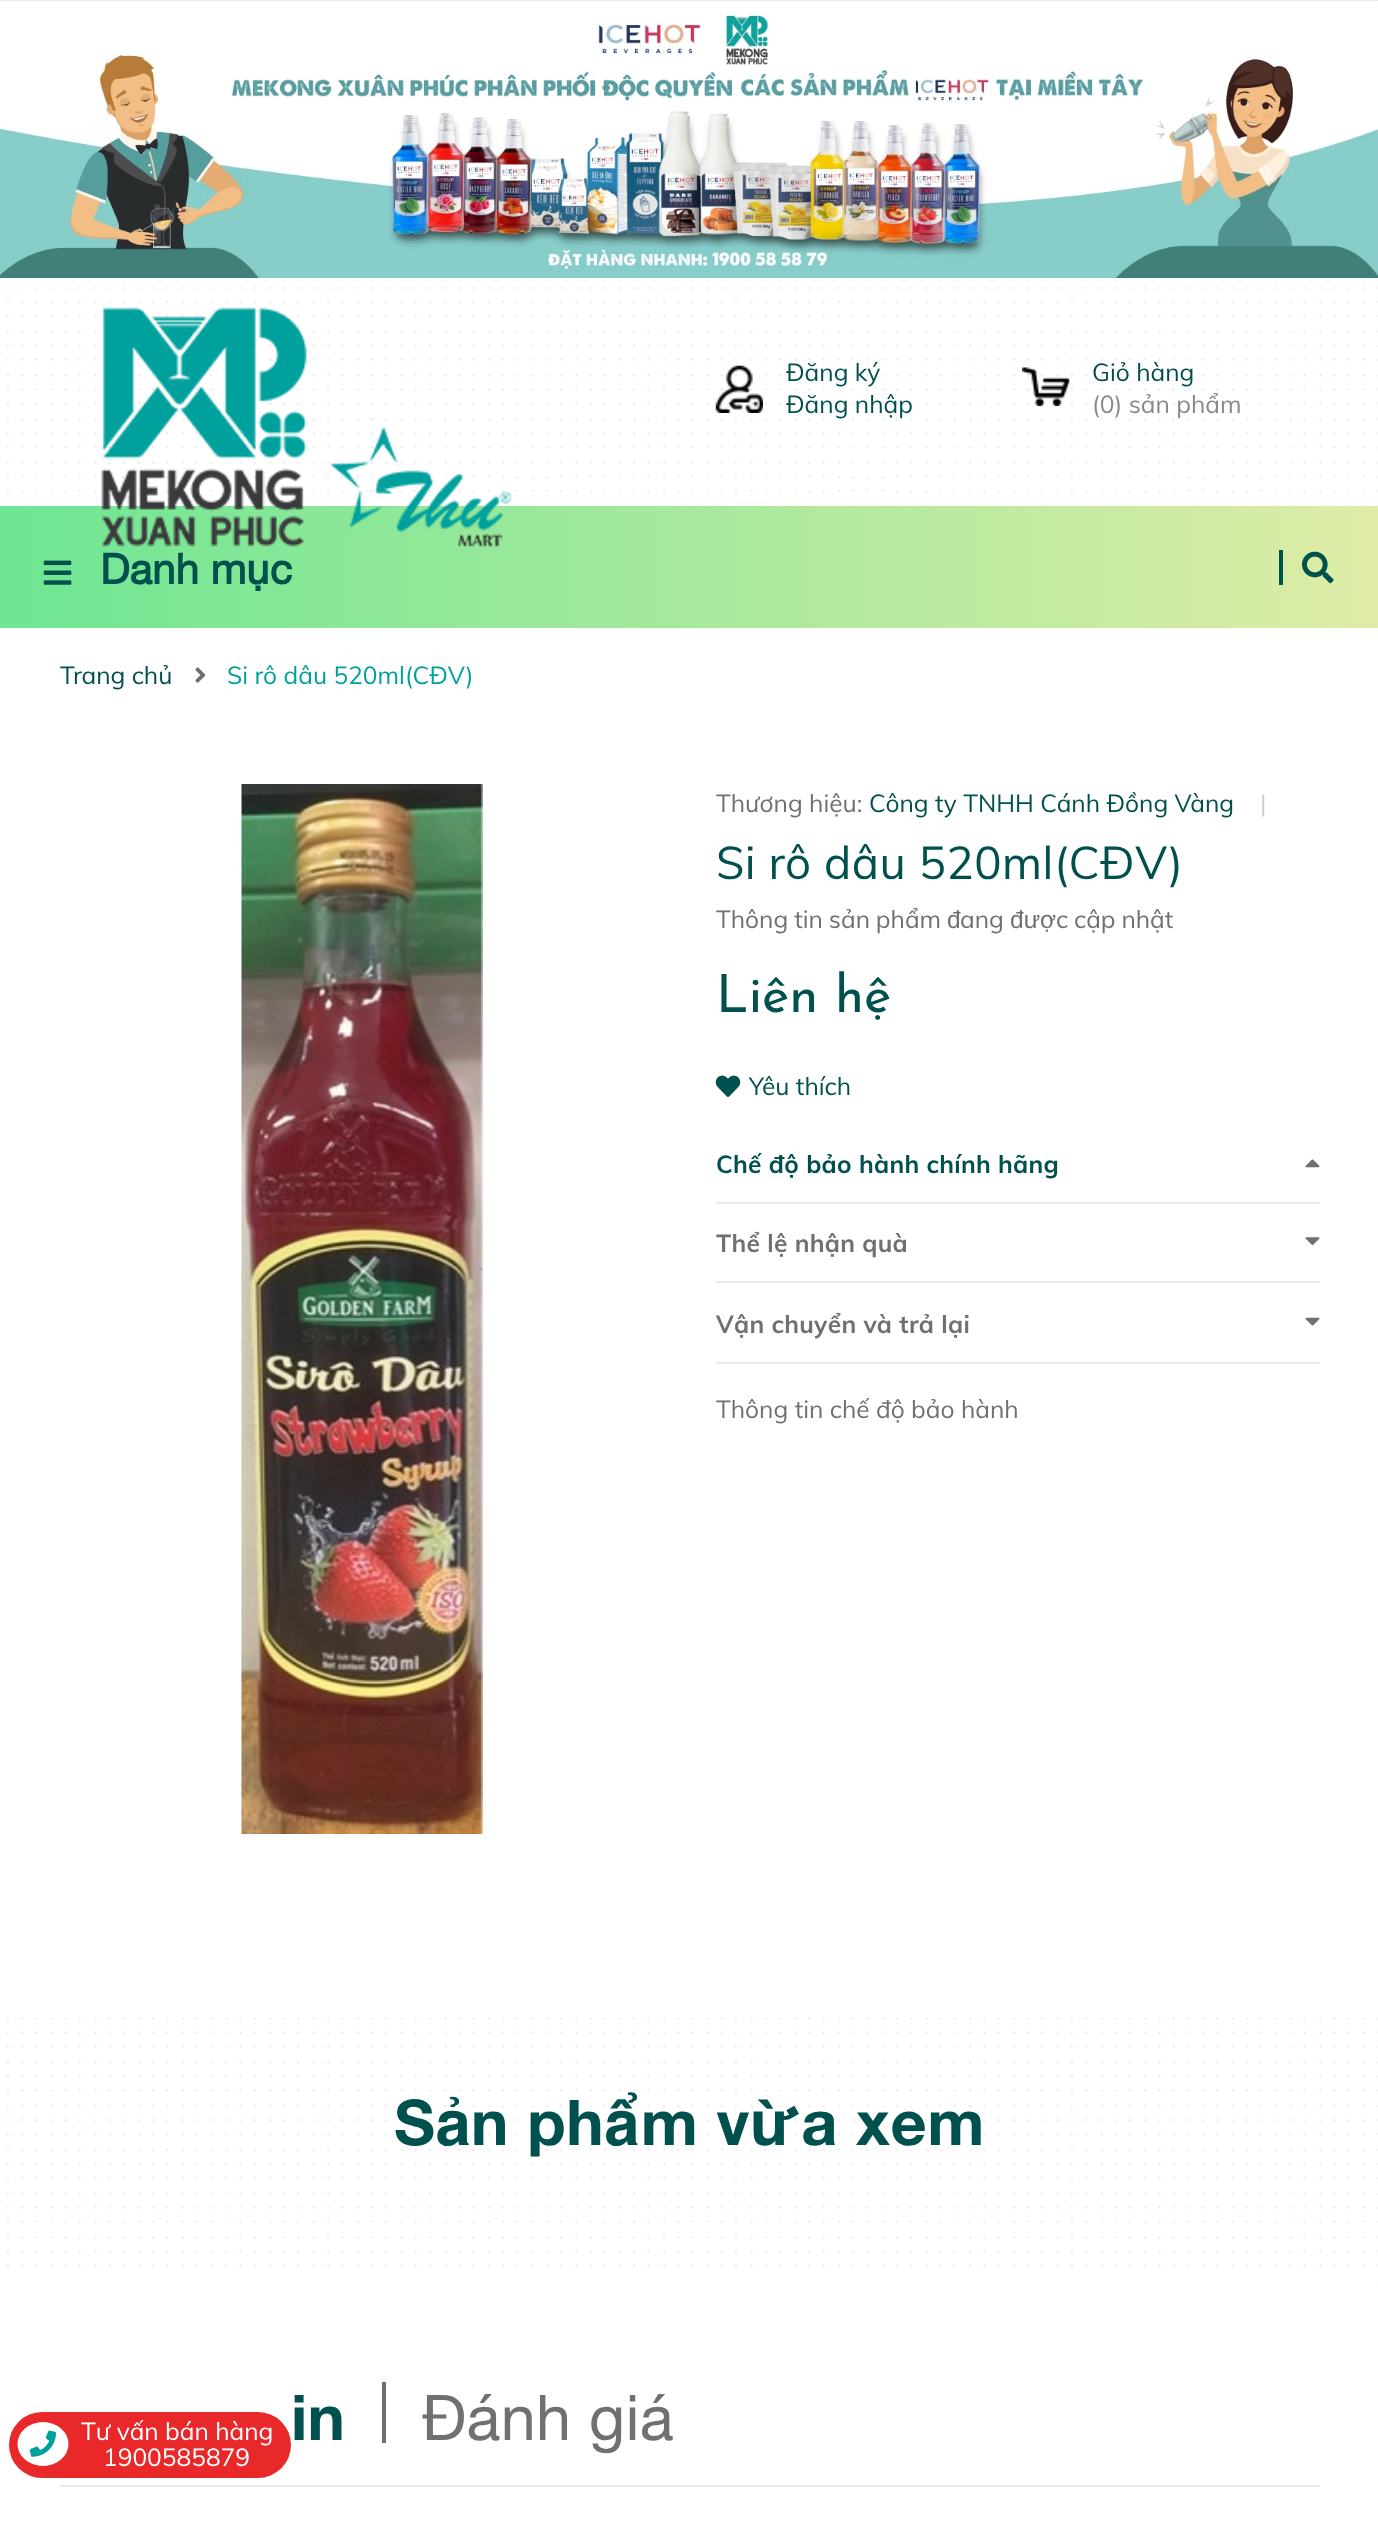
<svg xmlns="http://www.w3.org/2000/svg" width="1378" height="2529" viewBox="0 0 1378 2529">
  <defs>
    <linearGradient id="g1" gradientUnits="userSpaceOnUse" x1="0" y1="567" x2="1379" y2="567"><stop offset="0" stop-color="#6ee693"/><stop offset="1" stop-color="#dfeca6"/></linearGradient>
  </defs>
  <rect width="100%" height="100%" fill="#fff"/>
  <image x="0" y="0" width="1378" height="278" href="img/1.png"/>
  <image x="6" y="286" width="1372" height="220" href="img/2.png"/>
  <path d="M0 506h1378v122H0z" fill="url(#g1)"/>
  <image x="101" y="307" width="411" height="240" href="img/3.png"/>
  <image x="715" y="365" width="48" height="48" href="img/4.png"/>
  <image x="1022" y="367" width="48" height="39" href="img/5.png"/>
  <image x="43" y="560" width="29" height="25" href="img/6.png"/>
  <path d="M1279 550h4v35H1279z" fill="#00504e"/>
  <image x="1302" y="551" width="32" height="33" href="img/7.png"/>
  <image x="195" y="667" width="11" height="16" href="img/8.png"/>
  <rect x="9" y="2412" width="282" height="66" rx="33" fill="#e9282a"/>
  <ellipse cx="43" cy="2444" rx="25.5" ry="22" fill="#fff"/>
  <image x="29" y="2430" width="27" height="27" href="img/9.png"/>
  <image x="241" y="784" width="242" height="1050" href="img/10.png"/>
  <image x="715" y="1075" width="26" height="22" href="img/11.png"/>
  <path d="M716 1202h604v2H716z" fill="#ebebeb"/>
  <image x="1305" y="1159" width="15" height="9" href="img/12.png"/>
  <path d="M716 1281h604v2H716z" fill="#ebebeb"/>
  <image x="1305" y="1237" width="15" height="9" href="img/13.png"/>
  <path d="M716 1362h604v2H716z" fill="#ebebeb"/>
  <image x="1305" y="1317" width="15" height="9" href="img/14.png"/>
  <image x="6" y="2017" width="1372" height="264" href="img/15.png"/>
  <path d="M60 2485h1260v2H60z" fill="#ebebeb"/>
  <path d="M382 2382h4v61H382z" fill="#707070"/>
  <g font-family="Muli" font-size="24.5" fill="#00504e">
    <text x="786" y="381">Đăng ký</text>
    <text x="786" y="413">Đăng nhập</text>
    <text x="1092" y="381">Giỏ hàng</text>
  </g>
  <text x="1092" y="413" font-family="Muli" font-size="24.5" fill="#898989">(0) sản phẩm</text>
  <text x="100" y="584" font-family="'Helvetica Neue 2'" font-size="42" font-weight="bold" fill="#00504e">Danh mục</text>
  <text x="60" y="684" font-family="Muli" font-size="24.5" fill="#00504e">Trang chủ</text>
  <text x="227" y="684" font-family="Muli" font-size="24.5" fill="#00a19d">Si rô dâu 520ml(CĐV)</text>
  <g font-family="Muli" font-size="24.5" fill="#fff">
    <text x="81" y="2440">Tư vấn bán hàng</text>
    <text x="103" y="2466">1900585879</text>
  </g>
  <text x="716" y="812" font-family="Muli" font-size="24.5" fill="#707070">Thương hiệu:</text>
  <text x="869" y="812" font-family="Muli" font-size="24.5" fill="#00504e">Công ty TNHH Cánh Đồng Vàng</text>
  <text x="1260" y="812" font-family="Muli" font-size="24.5" fill="#ccc">|</text>
  <text x="716" y="879" font-family="Muli" font-size="45.5" letter-spacing="0.5" fill="#00504e">Si rô dâu 520ml(CĐV)</text>
  <text x="716" y="928" word-spacing="-0.5" font-family="Muli" font-size="24.5" fill="#707070">Thông tin sản phẩm</text>
  <text x="947" y="928" font-family="Liberation Sans" font-size="24.5" fill="#707070">đ</text>
  <text x="960" y="928" font-family="Muli" font-size="24.5" fill="#707070">ang</text>
  <text x="1010" y="928" font-family="Liberation Sans" font-size="24.5" fill="#707070">đượ</text>
  <text x="1056" y="928" word-spacing="-0.5" font-family="Muli" font-size="24.5" fill="#707070">c cập nhật</text>
  <text x="716" y="1012" font-family="Josefin Sans" font-size="52.5" fill="#00504e">Liên hệ</text>
  <text x="749" y="1095" font-family="Muli" font-size="24.5" fill="#00504e">Yêu thích</text>
  <text x="716" y="1173" font-family="Muli" font-size="24.5" font-weight="bold" letter-spacing="0.3" fill="#00504e">Chế độ bảo hành chính hãng</text>
  <g font-family="Muli" font-size="24.5" font-weight="bold" letter-spacing="0.3" fill="#707070">
    <text x="716" y="1252">Thể lệ nhận quà</text>
    <text x="716" y="1333">Vận chuyển và trả lại</text>
  </g>
  <text x="716" y="1418" font-family="Muli" font-size="24.5" fill="#707070">Thông tin chế độ bảo hành</text>
  <text x="394" y="2145" font-family="Helvetica Neue" font-size="63" font-weight="bold" letter-spacing="0.6" fill="#00504e">Sản phẩm vừa xem</text>
  <text x="291" y="2440" font-family="Helvetica Neue" font-size="63" font-weight="bold" letter-spacing="0.25" fill="#00504e">in</text>
  <text x="422" y="2440" font-family="Helvetica Neue" font-size="63" letter-spacing="0.25" fill="#707070">Đánh giá</text>
</svg>
